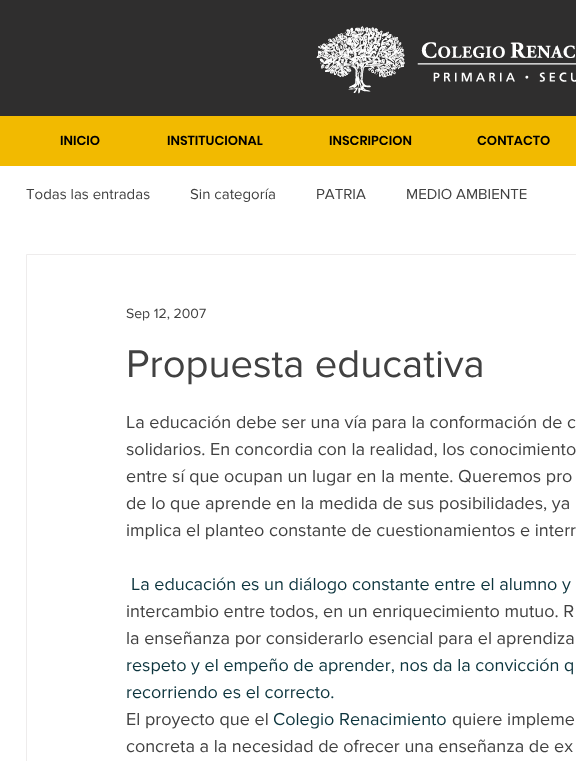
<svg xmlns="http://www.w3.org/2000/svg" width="576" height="761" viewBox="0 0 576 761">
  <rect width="100%" height="100%" fill="#fff"/>
  <path d="M0 0h576v116H0z" fill="#2f2e2e"/>
  <image x="316" y="26" width="260" height="68" href="img/1.png"/>
  <path d="M0 116h576v50H0z" fill="#f2ba00"/>
  <path d="M26.5 254.5h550v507H26.5z" fill="none" stroke="#eeecec"/>
  <g font-family="Poppins" font-size="13" font-weight="600" fill="#000">
    <text x="60" y="145">INICIO</text>
    <text x="167" y="145">INSTITUCIONAL</text>
    <text x="329" y="145">INSCRIPCION</text>
    <text x="477" y="145">CONTACTO</text>
  </g>
  <g font-family="'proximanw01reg'" font-size="15" fill="#414141">
    <text x="26" y="199">Todas las entradas</text>
    <text x="190" y="199">Sin categoría</text>
    <text x="316" y="199">PATRIA</text>
    <text x="406" y="199">MEDIO AMBIENTE</text>
  </g>
  <text x="126" y="318" font-family="'proximanw01reg'" font-size="14" fill="#414141">Sep 12, 2007</text>
  <text x="126" y="377" font-family="'proximanw01reg'" font-size="40" fill="#414141">Propuesta educativa</text>
  <g font-family="'proximanw01reg'" font-size="18" fill="#414141">
    <text x="126" y="428">La educación debe ser una vía para la conformación de c</text>
    <text x="126" y="455">solidarios. En concordia con la realidad, los conocimiento</text>
    <text x="126" y="482">entre sí que ocupan un lugar en la mente. Queremos pro</text>
    <text x="126" y="509">de lo que aprende en la medida de sus posibilidades, ya</text>
    <text x="126" y="536">implica el planteo constante de cuestionamientos e interr</text>
  </g>
  <text x="131" y="590" font-family="'proximanw01reg'" font-size="18" fill="#0c343d">La educación es un diálogo constante entre el alumno y</text>
  <g font-family="'proximanw01reg'" font-size="18" fill="#414141">
    <text x="126" y="617">intercambio entre todos, en un enriquecimiento mutuo. R</text>
    <text x="126" y="644">la enseñanza por considerarlo esencial para el aprendiza</text>
  </g>
  <g font-family="'proximanw01reg'" font-size="18" fill="#0c343d">
    <text x="126" y="671">respeto y el empeño de aprender, nos da la convicción q</text>
    <text x="126" y="698">recorriendo es el correcto.</text>
  </g>
  <text x="126" y="725" font-family="'proximanw01reg'" font-size="18" fill="#414141">El proyecto que el</text>
  <text x="273" y="725" font-family="'proximanw01reg'" font-size="18" fill="#0c343d">Colegio Renacimiento</text>
  <g font-family="'proximanw01reg'" font-size="18" fill="#414141">
    <text x="452" y="725">quiere impleme</text>
    <text x="126" y="752">concreta a la necesidad de ofrecer una enseñanza de ex</text>
  </g>
</svg>
